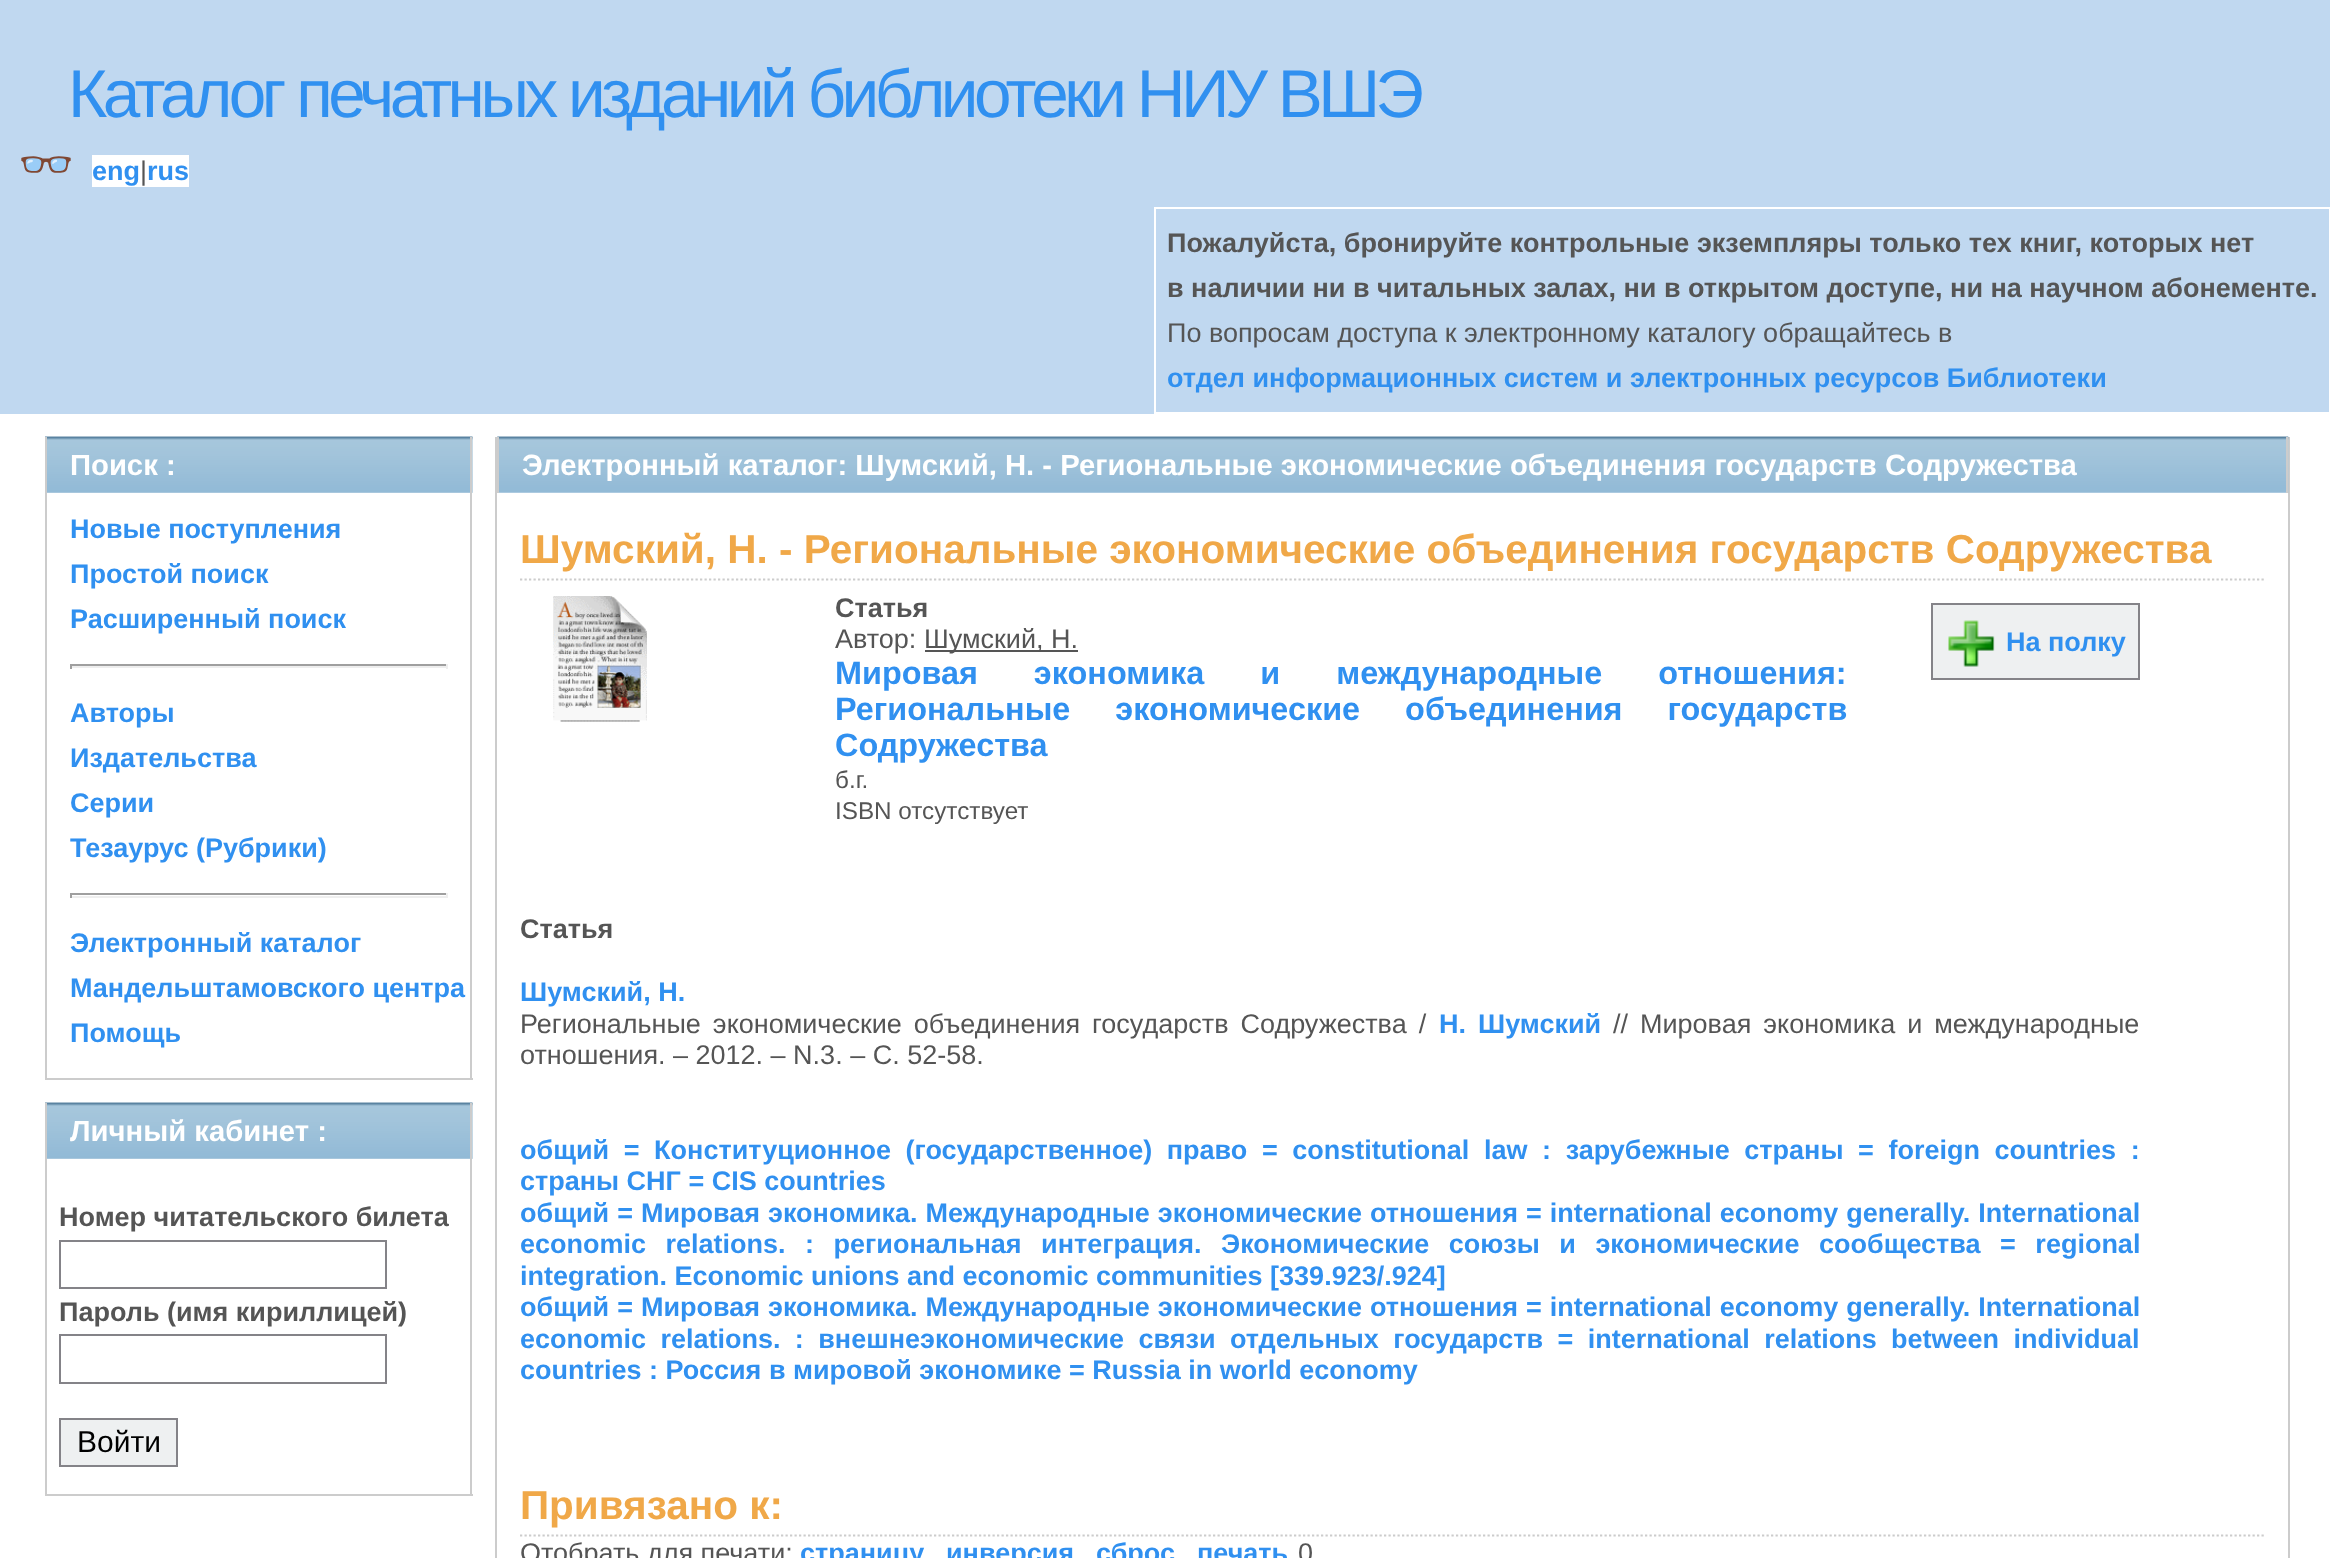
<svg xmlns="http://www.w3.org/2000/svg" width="2330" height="1558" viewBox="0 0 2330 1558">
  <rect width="100%" height="100%" fill="#fff"/>
  <path d="M0 0h2330v414H0z" fill="#c0d8f0"/>
  <path d="M92 155h97v32H92z" fill="#fff"/>
  <path d="M1155 208h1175v205H1155z" fill="none" stroke="#fff" stroke-width="2"/>
  <path d="M47 437h426v56H47z" fill="#eef0f1"/>
  <image x="45" y="436" width="428" height="57" href="img/1.png"/>
  <path d="M470 437h2v643H470z" fill="#ccc"/>
  <path d="M45 437h2v56H45z" fill="#ccc"/>
  <path d="M45 1078h428v2H45z" fill="#ccc"/>
  <path d="M45 493h2v587H45z" fill="#ccc"/>
  <path d="M70 664h378v2H70z" fill="#9f9f9f"/>
  <path d="M446 664h2v5H446z" fill="#eee"/>
  <path d="M70 666h378v2H70z" fill="#eee"/>
  <path d="M70 664h2v5H70z" fill="#9f9f9f"/>
  <path d="M70 893h378v2H70z" fill="#9f9f9f"/>
  <path d="M446 893h2v5H446z" fill="#eee"/>
  <path d="M70 896h378v2H70z" fill="#eee"/>
  <path d="M70 893h2v5H70z" fill="#9f9f9f"/>
  <path d="M47 1103h426v56H47z" fill="#eef0f1"/>
  <image x="45" y="1102" width="428" height="57" href="img/1.png"/>
  <path d="M470 1103h2v393H470z" fill="#ccc"/>
  <path d="M45 1103h2v56H45z" fill="#ccc"/>
  <path d="M45 1494h428v2H45z" fill="#ccc"/>
  <path d="M45 1159h2v337H45z" fill="#ccc"/>
  <path d="M60 1241h326v47H60z" fill="none" stroke="#848388" stroke-width="2"/>
  <path d="M60 1335h326v48H60z" fill="none" stroke="#848388" stroke-width="2"/>
  <path d="M60 1419h117v47H60z" fill="#eef0f1" stroke="#848388" stroke-width="2"/>
  <path d="M2288 437h2v1121H2288z" fill="#ccc"/>
  <path d="M495 437h2v1121H495z" fill="#ccc"/>
  <image x="497" y="436" width="1792" height="57" href="img/2.png"/>
  <path d="M2286 437h2v56H2286z" fill="#ccc"/>
  <path d="M497 437h2v56H497z" fill="#ccc"/>
  <path d="M520 579.5H2266" fill="none" stroke="#ccc" stroke-width="2.2" stroke-dasharray="2.25 2.25"/>
  <image x="553" y="596" width="94" height="126" href="img/3.png"/>
  <path d="M925 650h153v2H925z" fill="#555"/>
  <path d="M1932 604h207v75H1932z" fill="#eef0f1" stroke="#848388" stroke-width="2"/>
  <image x="1948" y="620" width="47" height="47" href="img/4.png"/>
  <path d="M520 1535.5H2266" fill="none" stroke="#ccc" stroke-width="2.2" stroke-dasharray="2.25 2.25"/>
  <text x="68" y="117" font-family="Liberation Sans" font-size="67.5" letter-spacing="-4.5" fill="#3090f0">Каталог печатных изданий библиотеки НИУ ВШЭ</text>
  <text x="18" y="180" font-family="Noto Color Emoji" font-size="45" font-weight="bold" fill="#3090f0">👓</text>
  <text x="92" y="180" font-family="Liberation Sans" font-size="27" font-weight="bold" fill="#3090f0">eng</text>
  <text x="140" y="180" font-family="Liberation Sans" font-size="27" fill="#555">|</text>
  <text x="147" y="180" font-family="Liberation Sans" font-size="27" font-weight="bold" fill="#3090f0">rus</text>
  <g font-family="Liberation Sans" font-size="27" font-weight="bold" fill="#555">
    <text x="1167" y="252">Пожалуйста, бронируйте контрольные экземпляры только тех книг, которых нет</text>
    <text x="1167" y="297">в наличии ни в читальных залах, ни в открытом доступе, ни на научном абонементе.</text>
  </g>
  <text x="1167" y="342" font-family="Liberation Sans" font-size="27" fill="#555">По вопросам доступа к электронному каталогу обращайтесь в</text>
  <text x="1167" y="387" font-family="Liberation Sans" font-size="27" font-weight="bold" fill="#3090f0">отдел информационных систем и электронных ресурсов Библиотеки</text>
  <text x="70" y="475" font-family="Liberation Sans" font-size="29.25" font-weight="bold" fill="#fff">Поиск :</text>
  <g font-family="Liberation Sans" font-size="27" font-weight="bold" fill="#3090f0">
    <text x="70" y="538">Новые поступления</text>
    <text x="70" y="583">Простой поиск</text>
    <text x="70" y="628">Расширенный поиск</text>
    <text x="70" y="722">Авторы</text>
    <text x="70" y="767">Издательства</text>
    <text x="70" y="812">Серии</text>
    <text x="70" y="857">Тезаурус (Рубрики)</text>
    <text x="70" y="952">Электронный каталог</text>
    <text x="70" y="997">Мандельштамовского центра</text>
    <text x="70" y="1042">Помощь</text>
  </g>
  <text x="70" y="1141" font-family="Liberation Sans" font-size="29.25" font-weight="bold" fill="#fff">Личный кабинет :</text>
  <g font-family="Liberation Sans" font-size="27" font-weight="bold" fill="#555">
    <text x="59" y="1226">Номер читательского билета</text>
    <text x="59" y="1321">Пароль (имя кириллицей)</text>
  </g>
  <text x="77" y="1452" font-family="Liberation Sans" font-size="30" fill="#000">Войти</text>
  <text x="522" y="475" font-family="Liberation Sans" font-size="29.25" font-weight="bold" fill="#fff">Электронный каталог: Шумский, Н. - Региональные экономические объединения государств Содружества</text>
  <text x="520" y="563" font-family="Liberation Sans" font-size="40.5" font-weight="bold" fill="#f0a848">Шумский, Н. - Региональные экономические объединения государств Содружества</text>
  <text x="835" y="617" font-family="Liberation Sans" font-size="27" font-weight="bold" fill="#555">Статья</text>
  <g font-family="Liberation Sans" font-size="27" fill="#555">
    <text x="835" y="648">Автор:</text>
    <text x="924" y="648">Шумский, Н.</text>
  </g>
  <g font-family="Liberation Sans" font-size="32.4" font-weight="bold" fill="#3090f0">
    <text x="835" y="684" word-spacing="47">Мировая экономика и международные отношения:</text>
    <text x="835" y="720" word-spacing="36">Региональные экономические объединения государств</text>
    <text x="835" y="756">Содружества</text>
  </g>
  <g font-family="Liberation Sans" font-size="24.25" fill="#555">
    <text x="835" y="788">б.г.</text>
    <text x="835" y="819">ISBN отсутствует</text>
  </g>
  <text x="2006" y="651" font-family="Liberation Sans" font-size="27" font-weight="bold" fill="#3090f0">На полку</text>
  <text x="520" y="938" font-family="Liberation Sans" font-size="27" font-weight="bold" fill="#555">Статья</text>
  <text x="520" y="1001" font-family="Liberation Sans" font-size="27" font-weight="bold" fill="#3090f0">Шумский, Н.</text>
  <text x="520" y="1033" word-spacing="4.5" font-family="Liberation Sans" font-size="27" fill="#555">Региональные экономические объединения государств Содружества /</text>
  <text x="1439" y="1033" word-spacing="4.5" font-family="Liberation Sans" font-size="27" font-weight="bold" fill="#3090f0">Н. Шумский</text>
  <g font-family="Liberation Sans" font-size="27" fill="#555">
    <text x="1613" y="1033">//</text>
    <text x="1640" y="1033" word-spacing="4.5">Мировая экономика и международные</text>
    <text x="520" y="1064">отношения. – 2012. – N.3. – С. 52-58.</text>
  </g>
  <g font-family="Liberation Sans" font-size="27" font-weight="bold" fill="#3090f0">
    <text x="520" y="1159" word-spacing="7.1">общий = Конституционное (государственное) право = constitutional law : зарубежные страны = foreign countries :</text>
    <text x="520" y="1190">страны СНГ = CIS countries</text>
    <text x="520" y="1222" word-spacing="0.5">общий = Мировая экономика. Международные экономические отношения = international economy generally. International</text>
    <text x="520" y="1253" word-spacing="12">economic relations. : региональная интеграция. Экономические союзы и экономические сообщества = regional</text>
    <text x="520" y="1285">integration. Economic unions and economic communities [339.923/.924]</text>
    <text x="520" y="1316" word-spacing="0.5">общий = Мировая экономика. Международные экономические отношения = international economy generally. International</text>
    <text x="520" y="1348" word-spacing="6.9">economic relations. : внешнеэкономические связи отдельных государств = international relations between individual</text>
    <text x="520" y="1379">countries : Россия в мировой экономике = Russia in world economy</text>
  </g>
  <text x="520" y="1519" font-family="Liberation Sans" font-size="40.5" font-weight="bold" fill="#f0a848">Привязано к:</text>
  <text x="520" y="1562" font-family="Liberation Sans" font-size="27" fill="#555">Отобрать для печати:</text>
  <g font-family="Liberation Sans" font-size="27" font-weight="bold" fill="#3090f0">
    <text x="800" y="1562">страницу</text>
    <text x="946" y="1562">инверсия</text>
    <text x="1096" y="1562">сброс</text>
    <text x="1197" y="1562">печать</text>
  </g>
  <text x="1298" y="1562" font-family="Liberation Sans" font-size="27" fill="#555">0</text>
</svg>
